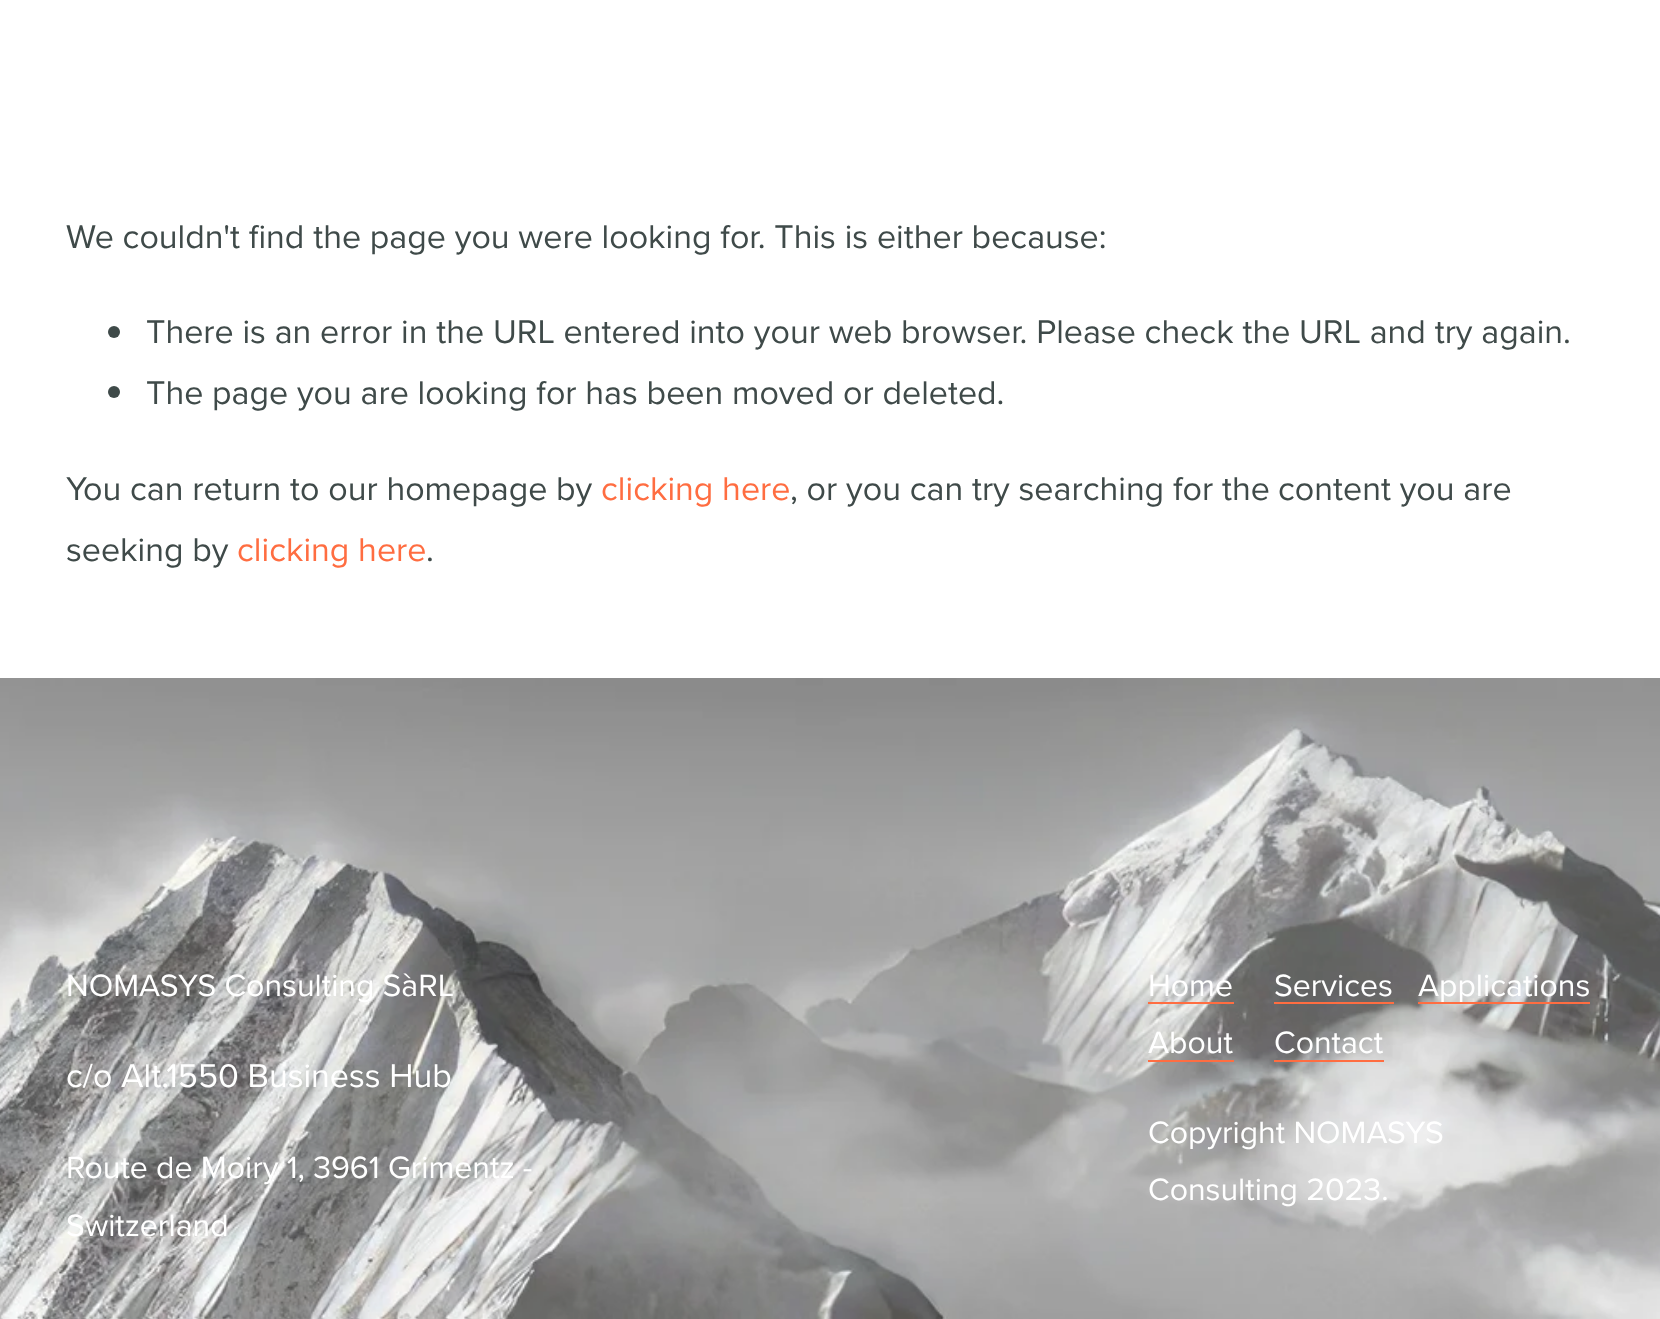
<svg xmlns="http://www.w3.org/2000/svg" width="1660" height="1319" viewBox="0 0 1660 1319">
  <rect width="100%" height="100%" fill="#fff"/>
  <circle cx="114" cy="332" r="6" fill="#3f4a49"/>
  <circle cx="114" cy="392" r="6" fill="#3f4a49"/>
  <image x="0" y="678" width="1660" height="641" href="img/1.png"/>
  <path d="M1148 1002h86v2H1148z" fill="#ff6d41"/>
  <path d="M1274 1002h120v2H1274z" fill="#ff6d41"/>
  <path d="M1418 1002h172v2H1418z" fill="#ff6d41"/>
  <path d="M1148 1060h86v2H1148z" fill="#ff6d41"/>
  <path d="M1274 1060h110v2H1274z" fill="#ff6d41"/>
  <g font-family="Proxima Nova" font-size="34" fill="#3f4a49">
    <text x="66" y="248">We couldn't find the page you were looking for. This is either because:</text>
    <text x="146" y="343">There is an error in the URL entered into your web browser. Please check the URL and try again.</text>
    <text x="146" y="404">The page you are looking for has been moved or deleted.</text>
    <text x="66" y="500">You can return to our homepage by</text>
  </g>
  <text x="601" y="500" font-family="Proxima Nova" font-size="34" fill="#ff6d41">clicking here</text>
  <g font-family="Proxima Nova" font-size="34" fill="#3f4a49">
    <text x="790" y="500">, or you can try searching for the</text>
    <text x="1278" y="500">content you are</text>
    <text x="66" y="561">seeking by</text>
  </g>
  <text x="237" y="561" font-family="Proxima Nova" font-size="34" fill="#ff6d41">clicking here</text>
  <text x="426" y="561" font-family="Proxima Nova" font-size="34" fill="#3f4a49">.</text>
  <text x="66" y="996" font-family="Proxima Nova" font-size="32" fill="#fff">NOMASYS Consulting SàRL</text>
  <text x="66" y="1087" font-family="Proxima Nova" font-size="34" fill="#fff">c/o Alt.1550 Business Hub</text>
  <g font-family="Proxima Nova" font-size="32" fill="#fff">
    <text x="66" y="1178">Route de Moiry 1, 3961 Grimentz -</text>
    <text x="66" y="1236">Switzerland</text>
    <text x="1148" y="996">Home</text>
    <text x="1274" y="996">Services</text>
    <text x="1418" y="996">Applications</text>
    <text x="1148" y="1053">About</text>
    <text x="1274" y="1053">Contact</text>
    <text x="1148" y="1143">Copyright NOMASYS</text>
    <text x="1148" y="1200">Consulting 2023.</text>
  </g>
</svg>
